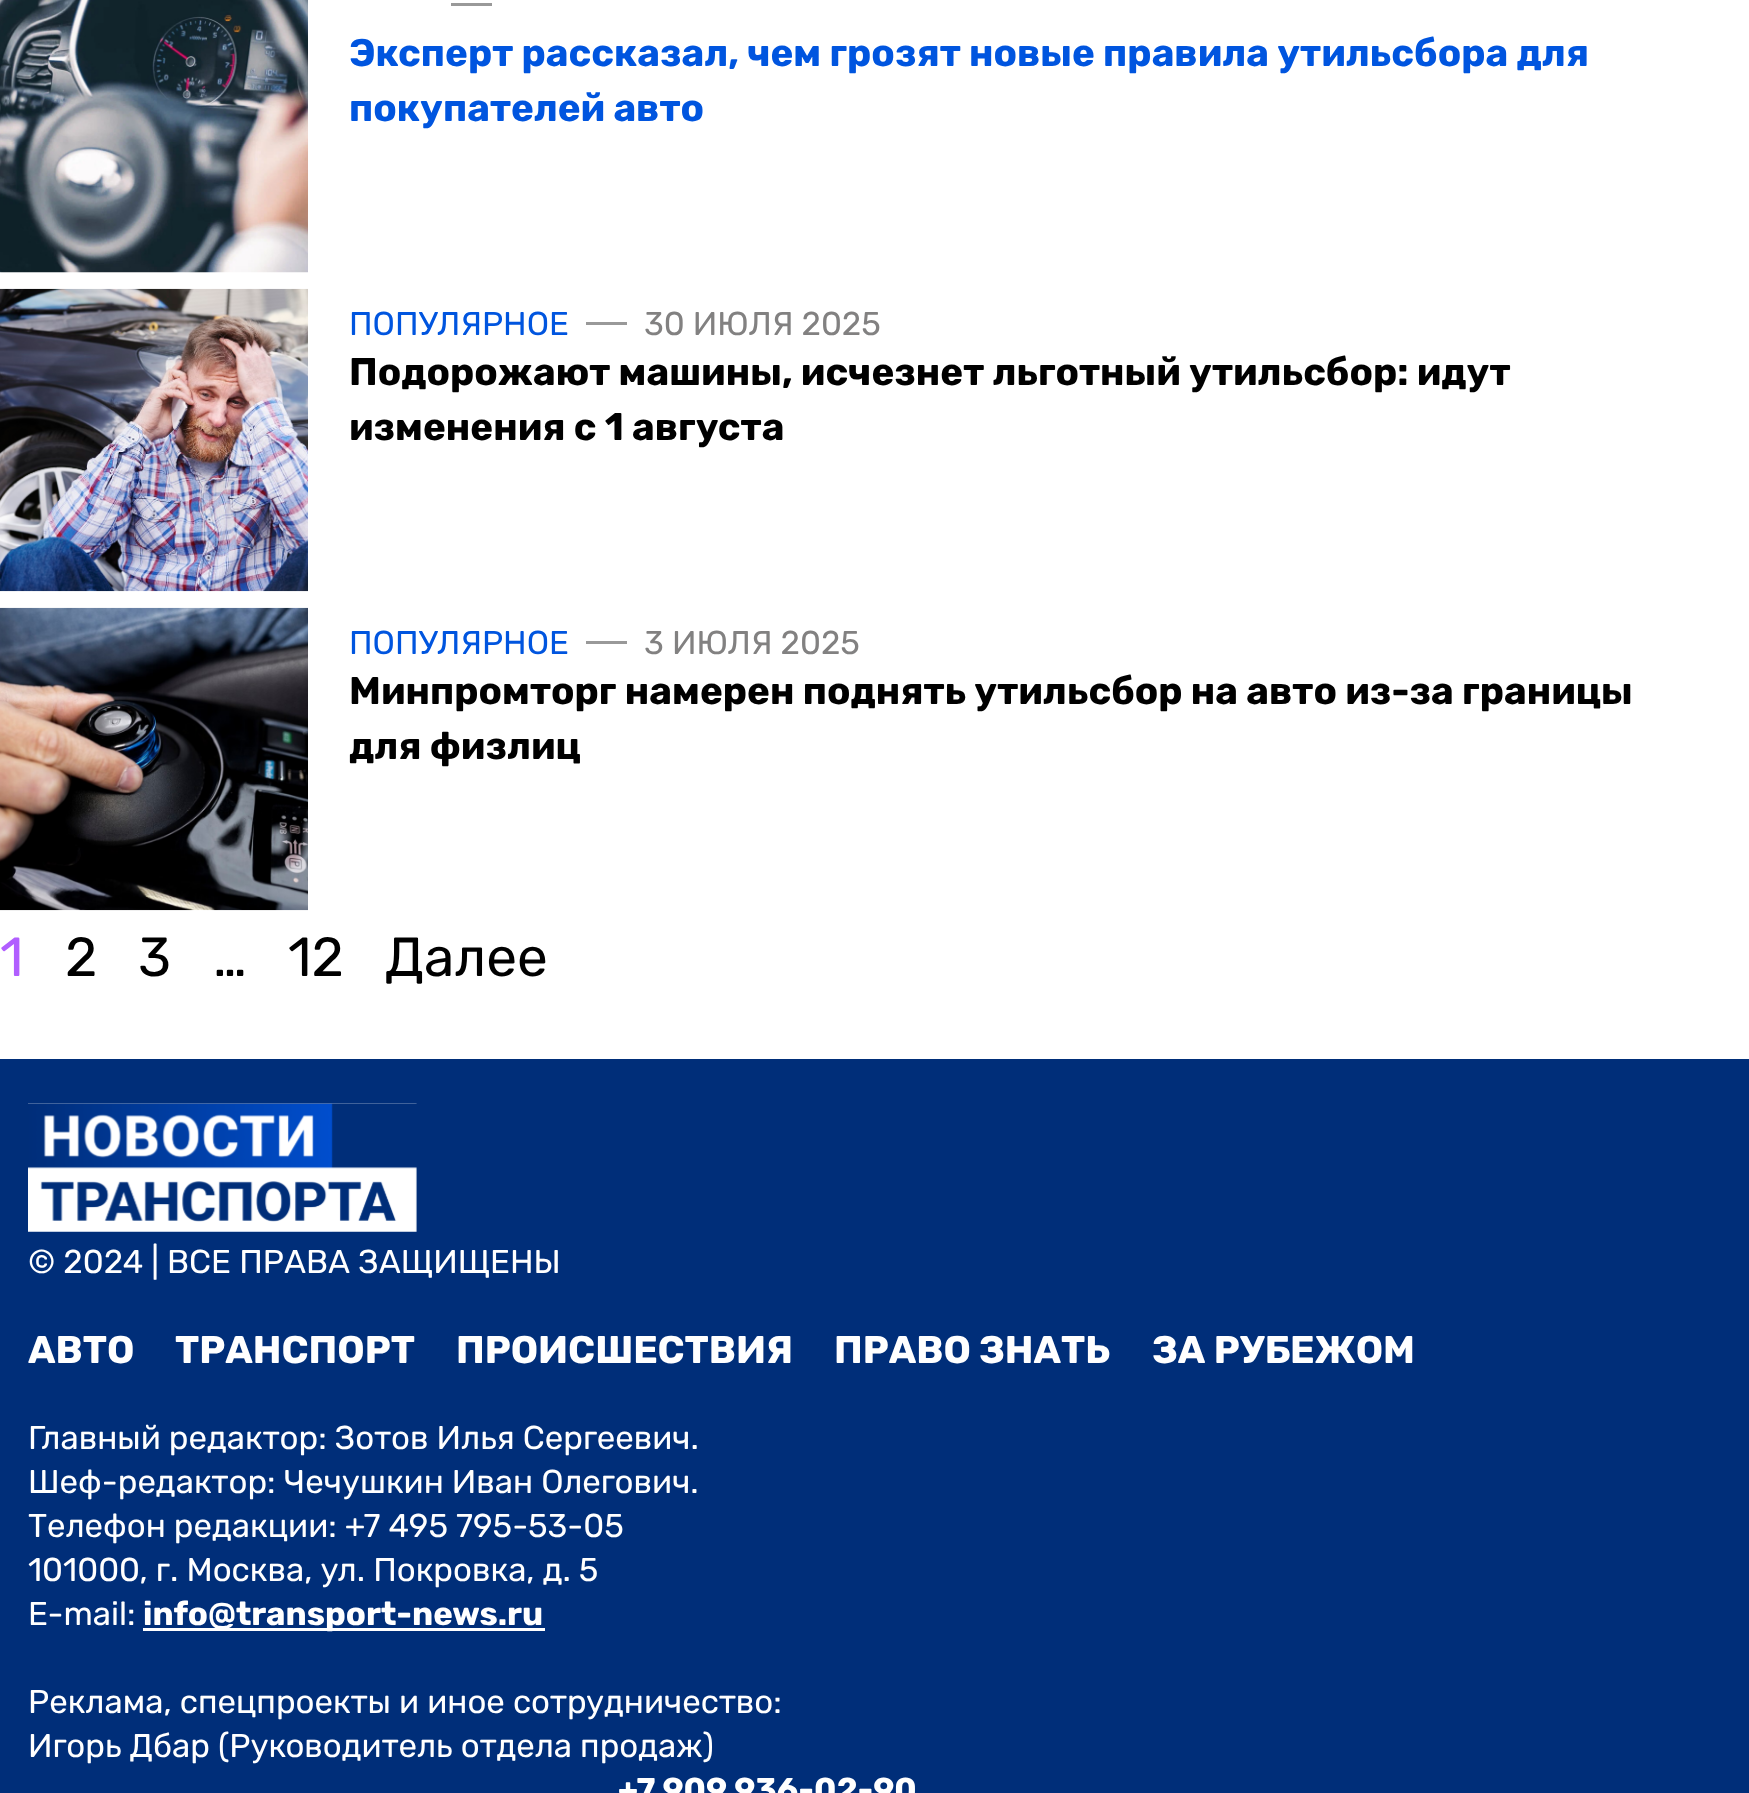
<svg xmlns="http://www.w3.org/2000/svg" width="1749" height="1793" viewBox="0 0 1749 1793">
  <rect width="100%" height="100%" fill="#fff"/>
  <image x="0" y="0" width="308" height="273" href="img/1.png"/>
  <path d="M451 3h41v3H451z" fill="#999"/>
  <image x="0" y="288" width="308" height="304" href="img/2.png"/>
  <path d="M586 322h41v3H586z" fill="#999"/>
  <image x="0" y="607" width="308" height="304" href="img/3.png"/>
  <path d="M586 641h41v3H586z" fill="#999"/>
  <path d="M0 1059h1749v734H0z" fill="#002e79"/>
  <image x="28" y="1103" width="389" height="129" href="img/4.png"/>
  <path d="M143 1628h402v3H143z" fill="#fff"/>
  <g font-family="Rubik" font-size="38.5" font-weight="bold" fill="#0055df">
    <text x="349" y="66">Эксперт рассказал, чем грозят новые правила утильсбора для</text>
    <text x="349" y="121">покупателей авто</text>
  </g>
  <text x="349" y="335" font-family="Rubik" font-size="33" fill="#0055df">ПОПУЛЯРНОЕ</text>
  <text x="644" y="335" font-family="Rubik" font-size="33" fill="#828181">30 ИЮЛЯ 2025</text>
  <g font-family="Rubik" font-size="38.5" font-weight="bold" fill="#000">
    <text x="349" y="385">Подорожают машины, исчезнет льготный утильсбор: идут</text>
    <text x="349" y="440">изменения с 1 августа</text>
  </g>
  <text x="349" y="654" font-family="Rubik" font-size="33" fill="#0055df">ПОПУЛЯРНОЕ</text>
  <text x="644" y="654" font-family="Rubik" font-size="33" fill="#828181">3 ИЮЛЯ 2025</text>
  <g font-family="Rubik" font-size="38.5" font-weight="bold" fill="#000">
    <text x="349" y="704">Минпромторг намерен поднять утильсбор на авто из-за границы</text>
    <text x="349" y="759">для физлиц</text>
  </g>
  <text x="0" y="976" font-family="Rubik" font-size="55" fill="#b15eff">1</text>
  <g font-family="Rubik" font-size="55" fill="#000">
    <text x="65" y="976">2</text>
    <text x="138" y="976">3</text>
    <text x="213" y="976">…</text>
    <text x="288" y="976">12</text>
    <text x="385" y="976">Далее</text>
  </g>
  <text x="28" y="1273" font-family="Rubik" font-size="33" fill="#fff">© 2024 | ВСЕ ПРАВА ЗАЩИЩЕНЫ</text>
  <g font-family="Rubik" font-size="38.5" font-weight="bold" fill="#fff">
    <text x="28" y="1363">АВТО</text>
    <text x="175" y="1363">ТРАНСПОРТ</text>
    <text x="456" y="1363">ПРОИСШЕСТВИЯ</text>
    <text x="834" y="1363">ПРАВО ЗНАТЬ</text>
    <text x="1152" y="1363">ЗА РУБЕЖОМ</text>
  </g>
  <g font-family="Rubik" font-size="33" fill="#fff">
    <text x="28" y="1449">Главный редактор: Зотов Илья Сергеевич.</text>
    <text x="28" y="1493">Шеф-редактор: Чечушкин Иван Олегович.</text>
    <text x="28" y="1537">Телефон редакции: +7 495 795-53-05</text>
    <text x="28" y="1581">101000, г. Москва, ул. Покровка, д. 5</text>
    <text x="28" y="1625">E-mail:</text>
  </g>
  <text x="143" y="1625" font-family="Rubik" font-size="33" font-weight="bold" fill="#fff">info@transport-news.ru</text>
  <g font-family="Rubik" font-size="33" fill="#fff">
    <text x="28" y="1713">Реклама, спецпроекты и иное сотрудничество:</text>
    <text x="28" y="1757">Игорь Дбар (Руководитель отдела продаж)</text>
  </g>
  <text x="618" y="1801" font-family="Rubik" font-size="33" font-weight="bold" fill="#fff">+7 909 936-02-90</text>
</svg>
